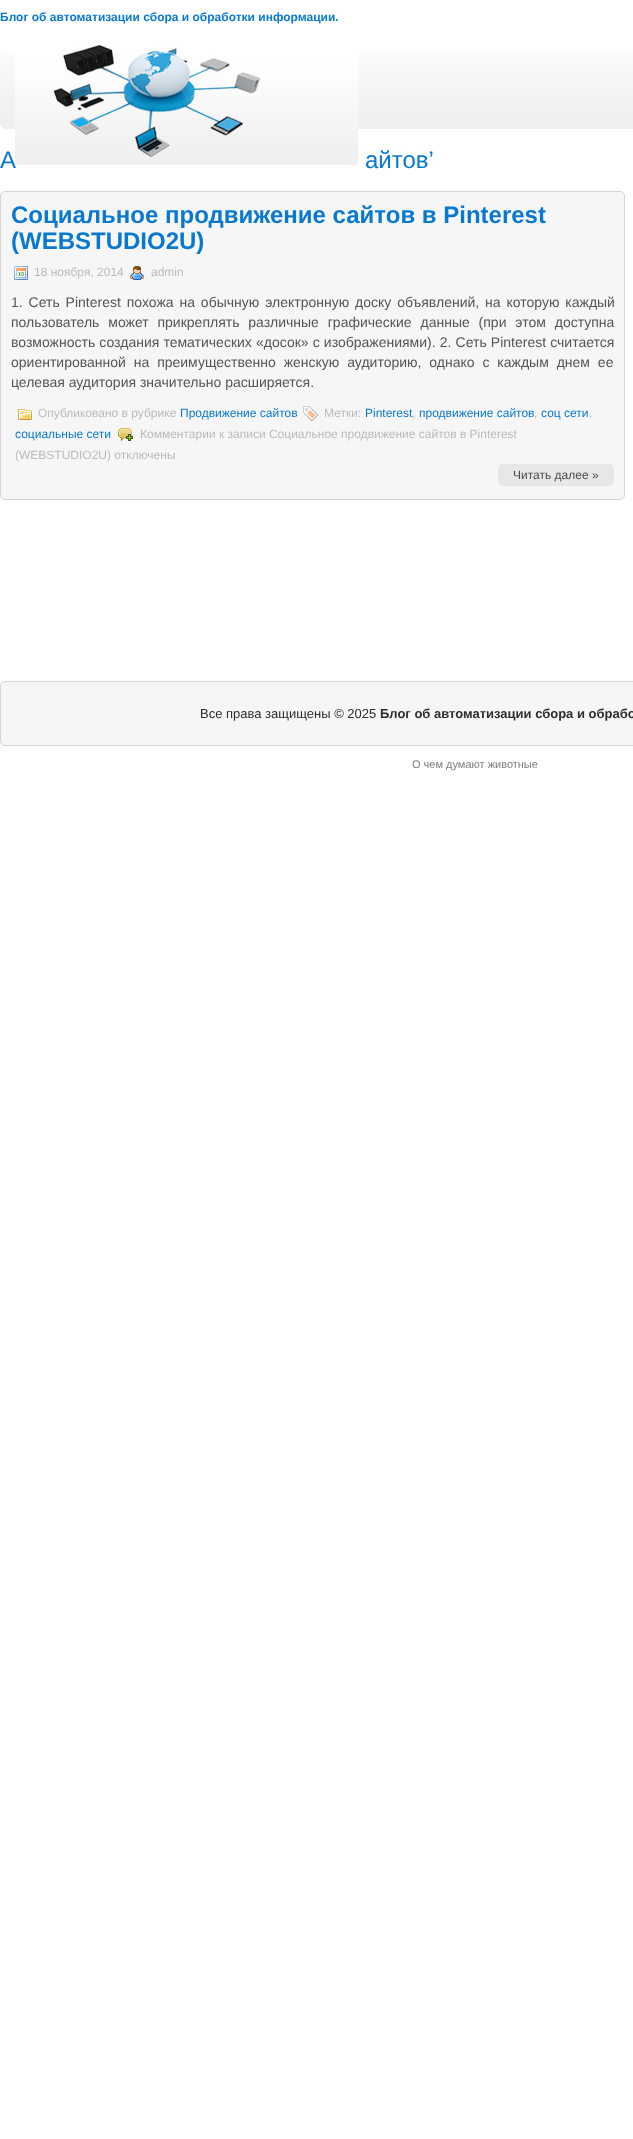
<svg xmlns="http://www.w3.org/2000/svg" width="633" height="2139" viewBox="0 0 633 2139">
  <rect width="100%" height="100%" fill="#fff"/>
  <image x="0" y="53" width="633" height="76" href="img/1.png"/>
  <rect x="0.5" y="191.5" width="624" height="308" rx="4.5" fill="#f6f6f6" stroke="#d4d4d4"/>
  <image x="14" y="266" width="14" height="14" href="img/3.png"/>
  <image x="130" y="266" width="14" height="14" href="img/4.png"/>
  <image x="18" y="409" width="14" height="11" href="img/5.png"/>
  <image x="303" y="406" width="16" height="16" href="img/6.png"/>
  <image x="118" y="428" width="15" height="13" href="img/7.png"/>
  <rect x="498" y="464" width="116" height="22" rx="5" fill="#e7e7e7"/>
  <rect x="0.5" y="681.5" width="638" height="64" rx="4.5" fill="#f6f6f6" stroke="#d4d4d4"/>
  <text x="0" y="21" font-family="Liberation Sans" font-size="12" font-weight="bold" fill="#0979cf">Блог об автоматизации сбора и обработки информации.</text>
  <text x="0" y="168" font-family="Liberation Sans" font-size="24" fill="#0979cf">А</text>
  <image x="15" y="44" width="343" height="121" href="img/2.png"/>
  <text x="365" y="168" font-family="Liberation Sans" font-size="24" fill="#0979cf">айтов’</text>
  <g font-family="Liberation Sans" font-size="24" font-weight="bold" fill="#0979cf">
    <text x="11" y="223">Социальное продвижение сайтов в Pinterest</text>
    <text x="11" y="249">(WEBSTUDIO2U)</text>
  </g>
  <g font-family="Liberation Sans" font-size="12" fill="#bbb">
    <text x="34" y="276">18 ноября, 2014</text>
    <text x="151" y="276">admin</text>
  </g>
  <g font-family="Liberation Sans" font-size="14" fill="#555">
    <text x="11" y="307" word-spacing="2">1. Сеть Pinterest похожа на обычную электронную доску объявлений, на которую каждый</text>
    <text x="11" y="327" word-spacing="5">пользователь может прикреплять различные графические данные (при этом доступна</text>
    <text x="11" y="347" word-spacing="0.25">возможность создания тематических «досок» с изображениями). 2. Сеть Pinterest считается</text>
    <text x="11" y="367" word-spacing="4">ориентированной на преимущественно женскую аудиторию, однако с каждым днем ее</text>
    <text x="11" y="387">целевая аудитория значительно расширяется.</text>
  </g>
  <text x="38" y="417" font-family="Liberation Sans" font-size="12" fill="#bbb">Опубликовано в рубрике</text>
  <text x="180" y="417" font-family="Liberation Sans" font-size="12" fill="#0979cf">Продвижение сайтов</text>
  <text x="324" y="417" font-family="Liberation Sans" font-size="12" fill="#bbb">Метки:</text>
  <text x="365" y="417" font-family="Liberation Sans" font-size="12" fill="#0979cf">Pinterest</text>
  <text x="412" y="417" font-family="Liberation Sans" font-size="12" fill="#bbb">,</text>
  <text x="419" y="417" font-family="Liberation Sans" font-size="12" fill="#0979cf">продвижение сайтов</text>
  <text x="534" y="417" font-family="Liberation Sans" font-size="12" fill="#bbb">,</text>
  <text x="541" y="417" font-family="Liberation Sans" font-size="12" fill="#0979cf">соц сети</text>
  <text x="589" y="417" font-family="Liberation Sans" font-size="12" fill="#bbb">,</text>
  <text x="15" y="438" font-family="Liberation Sans" font-size="12" fill="#0979cf">социальные сети</text>
  <g font-family="Liberation Sans" font-size="12" fill="#bbb">
    <text x="140" y="438">Комментарии к записи Социальное продвижение сайтов в Pinterest</text>
    <text x="15" y="459">(WEBSTUDIO2U) отключены</text>
  </g>
  <text x="513" y="479" font-family="Liberation Sans" font-size="12" fill="#4c4c4c">Читать далее »</text>
  <text x="200" y="718" font-family="Liberation Sans" font-size="13" fill="#2d2d2d">Все права защищены © 2025</text>
  <text x="380" y="718" font-family="Liberation Sans" font-size="13" font-weight="bold" fill="#2d2d2d">Блог об автоматизации сбора и обрабо</text>
  <text x="412" y="768" font-family="Liberation Sans" font-size="11" fill="#7d7d7d">О чем думают животные</text>
</svg>
